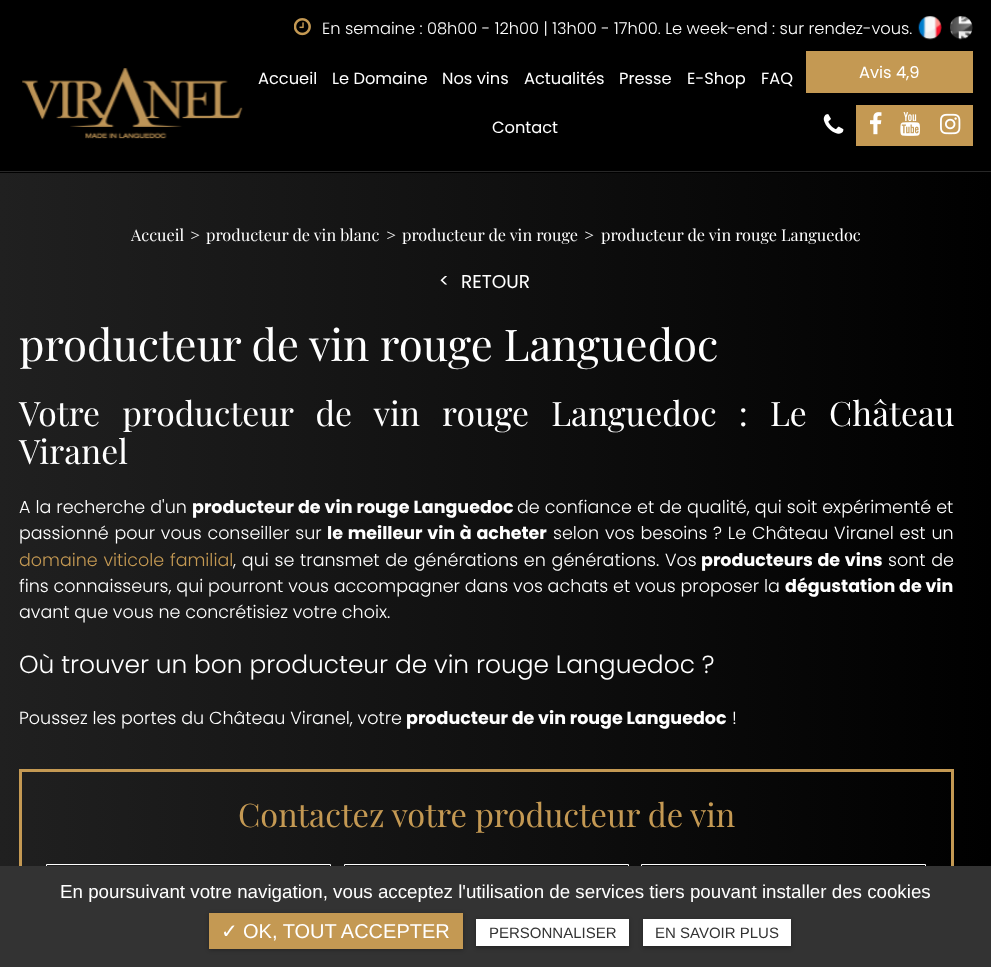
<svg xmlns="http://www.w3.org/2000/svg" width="991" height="967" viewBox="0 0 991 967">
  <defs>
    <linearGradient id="g1" gradientUnits="userSpaceOnUse" x1="0" y1="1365" x2="991" y2="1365"><stop offset="0" stop-color="#202020"/><stop offset="1" stop-color="#000"/></linearGradient>
  </defs>
  <rect width="100%" height="100%" fill="#fff"/>
  <path d="M0 0h991v173H0z" fill="#000"/>
  <path d="M0 171h991v1H0z" fill="#272727"/>
  <image x="294" y="18" width="17" height="18" href="img/1.png"/>
  <image x="918" y="16" width="24" height="24" href="img/2.png"/>
  <image x="950" y="16" width="23" height="24" href="img/3.png"/>
  <image x="22" y="68" width="221" height="71" href="img/4.png"/>
  <path d="M806 51h167v42H806z" fill="#c49953"/>
  <image x="823" y="114" width="21" height="20" href="img/5.png"/>
  <path d="M856 105h117v41H856z" fill="#c49953"/>
  <image x="870" y="112" width="12" height="23" href="img/6.png"/>
  <image x="900" y="112" width="20" height="24" href="img/7.png"/>
  <image x="940" y="113" width="21" height="22" href="img/8.png"/>
  <path d="M0 173h991v693H0z" fill="url(#g1)"/>
  <path d="M20.5 770.5h932v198H20.5z" fill="none" stroke="#c49953" stroke-width="3"/>
  <path d="M46.5 864.5h284v49H46.5z" fill="none" stroke="#fff"/>
  <path d="M344.5 864.5h284v49H344.5z" fill="none" stroke="#fff"/>
  <path d="M641.5 864.5h284v49H641.5z" fill="none" stroke="#fff"/>
  <path d="M0 866h991v101H0z" fill="#333"/>
  <path d="M209 914h254v36H209z" fill="#0000004d" filter="blur(2px)"/>
  <path d="M209 913h254v36H209z" fill="#c49953"/>
  <path d="M476 920h153v28H476z" fill="#0000004d" filter="blur(2px)"/>
  <path d="M476 919h153v27H476z" fill="#fff"/>
  <path d="M643 920h148v28H643z" fill="#0000004d" filter="blur(2px)"/>
  <path d="M643 919h148v27H643z" fill="#fff"/>
  <text x="322" y="34" font-family="Poppins" font-size="16.25" font-weight="300" fill="#fff">En semaine : 08h00 - 12h00 | 13h00 - 17h00. Le week-end : sur rendez-vous.</text>
  <g font-family="Poppins" font-size="16.25" fill="#fff">
    <text x="258" y="84">Accueil</text>
    <text x="332" y="84">Le Domaine</text>
    <text x="442" y="84">Nos vins</text>
    <text x="524" y="84">Actualités</text>
    <text x="619" y="84">Presse</text>
    <text x="687" y="84">E-Shop</text>
    <text x="761" y="84">FAQ</text>
    <text x="492" y="133">Contact</text>
    <text x="859" y="78">Avis 4,9</text>
  </g>
  <g font-family="Playfair Display" font-size="16.25" fill="#fff">
    <text x="131" y="241">Accueil</text>
    <text x="190" y="241">&gt;</text>
    <text x="206" y="241">producteur de vin blanc</text>
    <text x="386" y="241">&gt;</text>
    <text x="402" y="241">producteur de vin rouge</text>
    <text x="584" y="241">&gt;</text>
    <text x="601" y="241">producteur de vin rouge Languedoc</text>
  </g>
  <g font-family="Poppins" font-size="18.5" fill="#fff">
    <text x="439" y="287">&lt;</text>
    <text x="461" y="288">RETOUR</text>
  </g>
  <text x="19" y="361" font-family="Playfair Display" font-size="43.75" fill="#fff">producteur de vin rouge Languedoc</text>
  <g font-family="Playfair Display" font-size="33.75" fill="#fff">
    <text x="19" y="426" word-spacing="13.75">Votre producteur de vin rouge Languedoc : Le Château</text>
    <text x="19" y="464">Viranel</text>
  </g>
  <text x="19" y="513" word-spacing="0.25" font-family="Poppins" font-size="17.5" font-weight="300" fill="#fff">A la recherche d'un</text>
  <text x="192" y="513" word-spacing="0.25" font-family="Poppins" font-size="17.5" font-weight="bold" fill="#fff">producteur de vin rouge Languedoc</text>
  <g font-family="Poppins" font-size="17.5" font-weight="300" fill="#fff">
    <text x="517" y="513" word-spacing="0.25">de confiance et de qualité, qui soit expérimenté et</text>
    <text x="19" y="539" word-spacing="1">passionné pour vous conseiller sur</text>
  </g>
  <text x="327" y="539" word-spacing="1" font-family="Poppins" font-size="17.5" font-weight="bold" fill="#fff">le meilleur vin à acheter</text>
  <text x="553" y="539" word-spacing="1" font-family="Poppins" font-size="17.5" font-weight="300" fill="#fff">selon vos besoins ? Le Château Viranel est un</text>
  <text x="19" y="566" word-spacing="1" font-family="Poppins" font-size="17.5" font-weight="300" fill="#c49953">domaine viticole familial</text>
  <text x="233" y="566" word-spacing="1" font-family="Poppins" font-size="17.5" font-weight="300" fill="#fff">, qui se transmet de générations en générations. Vos</text>
  <text x="701" y="566" word-spacing="1" font-family="Poppins" font-size="17.5" font-weight="bold" fill="#fff">producteurs de vins</text>
  <g font-family="Poppins" font-size="17.5" font-weight="300" fill="#fff">
    <text x="888" y="566" word-spacing="1">sont de</text>
    <text x="19" y="592">fins connaisseurs, qui pourront vous accompagner dans vos achats et vous proposer la</text>
  </g>
  <text x="785" y="592" font-family="Poppins" font-size="17.5" font-weight="bold" fill="#fff">dégustation de vin</text>
  <text x="19" y="618" font-family="Poppins" font-size="17.5" font-weight="300" fill="#fff">avant que vous ne concrétisiez votre choix.</text>
  <text x="19" y="673" font-family="Poppins" font-size="24.9" font-weight="300" fill="#fff">Où trouver un bon producteur de vin rouge Languedoc ?</text>
  <text x="19" y="724" font-family="Poppins" font-size="17.5" font-weight="300" fill="#fff">Poussez les portes du Château Viranel, votre</text>
  <text x="406" y="724" font-family="Poppins" font-size="17.5" font-weight="bold" fill="#fff">producteur de vin rouge Languedoc</text>
  <text x="732" y="724" font-family="Poppins" font-size="17.5" font-weight="300" fill="#fff">!</text>
  <text x="238" y="827" font-family="Playfair Display" font-size="32.5" fill="#c49953">Contactez votre producteur de vin</text>
  <text x="60" y="898" font-family="Liberation Sans" font-size="18.75" fill="#fff">En poursuivant votre navigation, vous acceptez l'utilisation de services tiers pouvant installer des cookies</text>
  <text x="221" y="938" font-family="DejaVu Sans" font-size="20" fill="#fff">✓</text>
  <text x="243" y="938" font-family="Liberation Sans" font-size="20" fill="#fff">OK, TOUT ACCEPTER</text>
  <g font-family="Liberation Sans" font-size="15" fill="#333">
    <text x="489" y="938">PERSONNALISER</text>
    <text x="655" y="938">EN SAVOIR PLUS</text>
  </g>
</svg>
